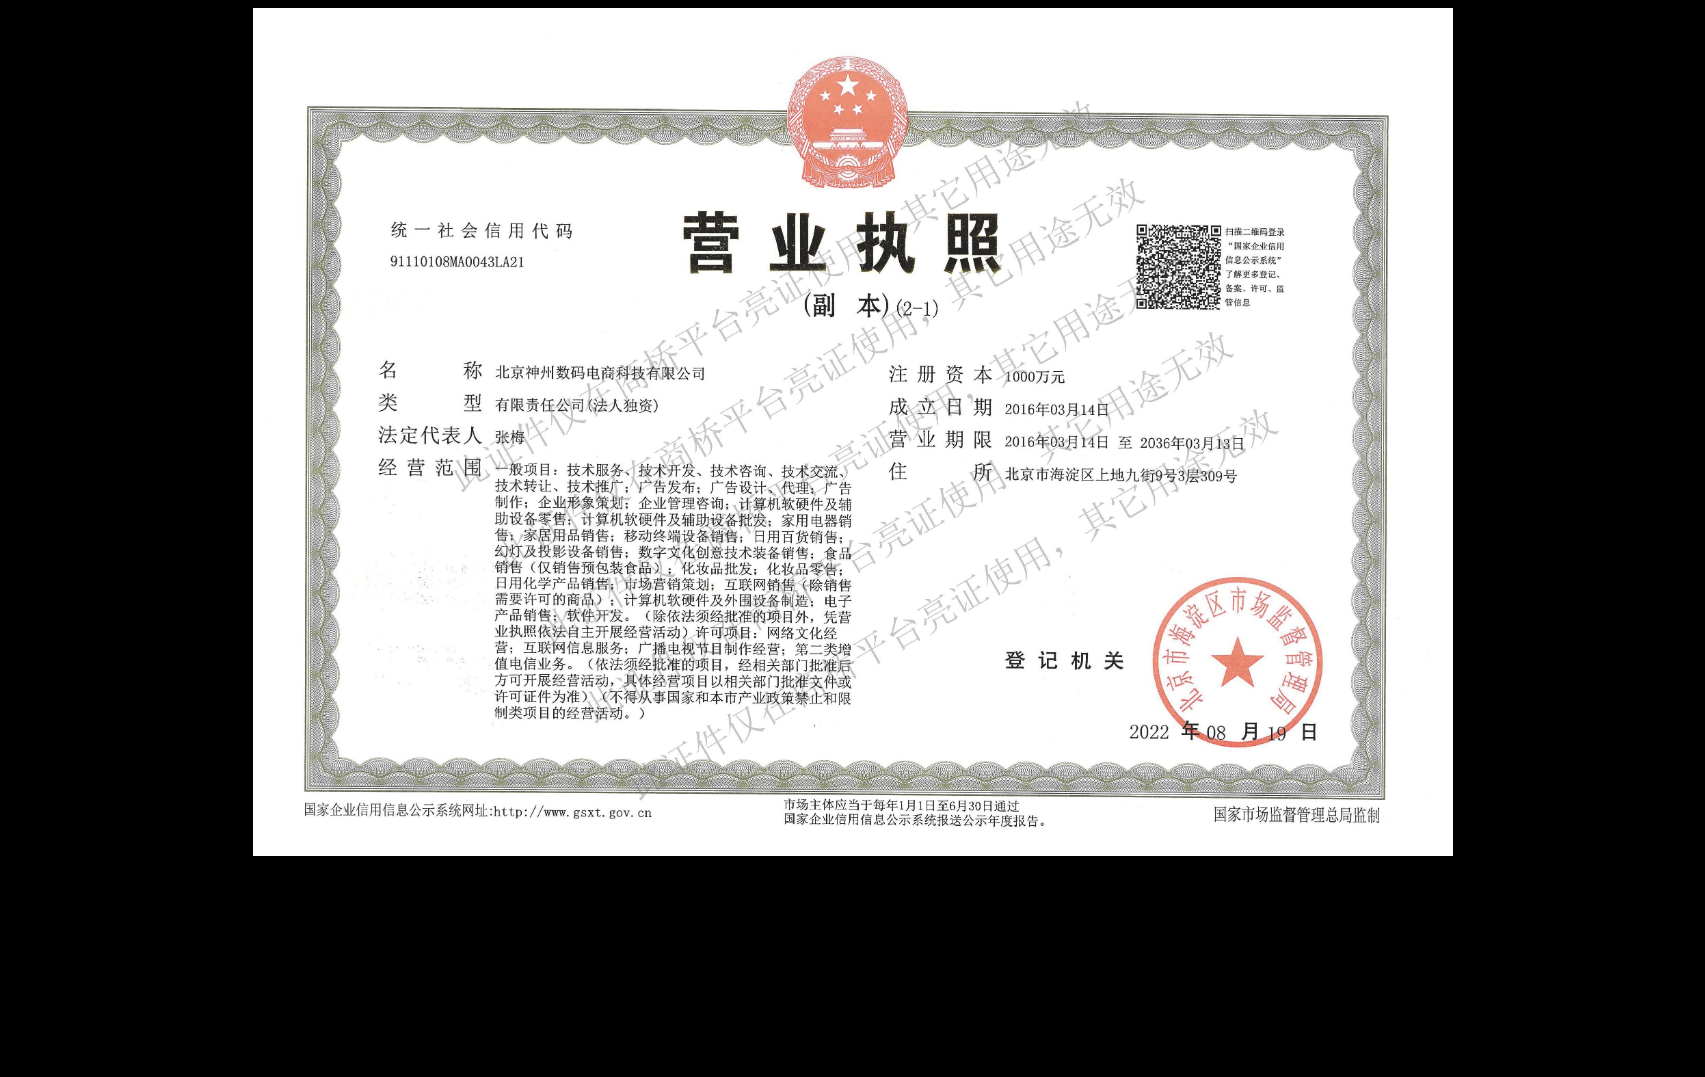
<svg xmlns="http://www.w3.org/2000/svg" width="1705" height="1077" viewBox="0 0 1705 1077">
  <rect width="100%" height="100%" fill="#000"/>
  <image x="253" y="8" width="1200" height="848" href="img/1.png"/>
</svg>
